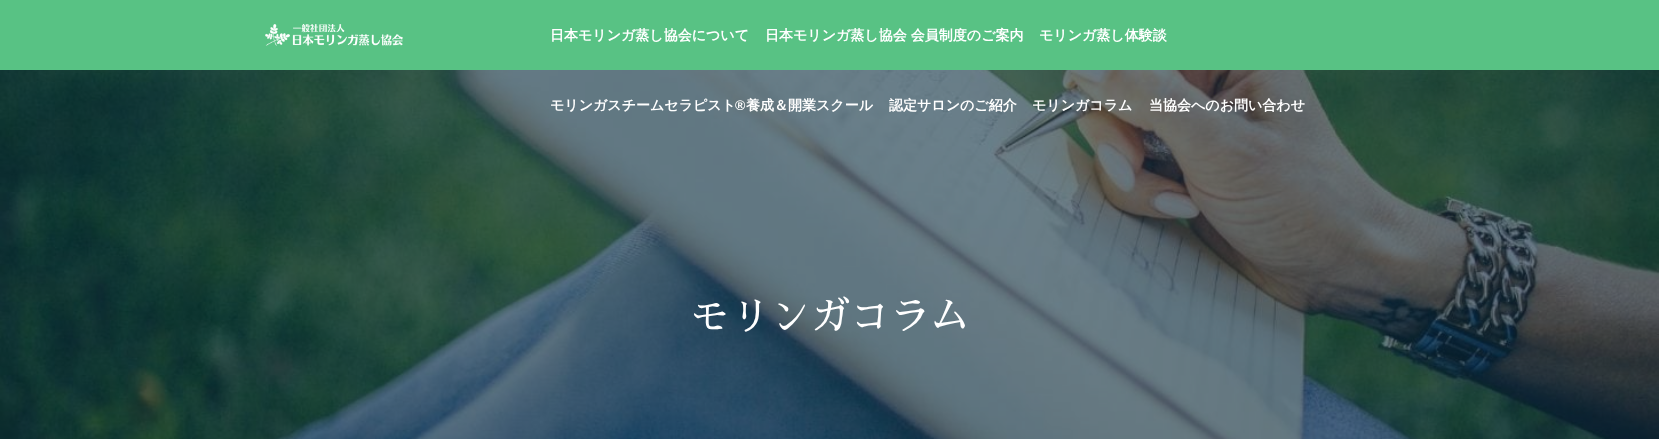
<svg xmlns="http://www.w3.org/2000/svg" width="1659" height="439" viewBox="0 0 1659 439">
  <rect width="100%" height="100%" fill="#fff"/>
  <path d="M0 0h1659v70H0z" fill="#58c284"/>
  <image x="265" y="24" width="138" height="22" href="img/1.png"/>
  <image x="0" y="70" width="1659" height="369" href="img/2.png"/>
  <g font-family="WenQuanYi Zen Hei" font-size="14" font-weight="bold" fill="#fff">
    <text x="550" y="40">日本モリンガ蒸し協会について</text>
    <text x="765" y="40">日本モリンガ蒸し協会 会員制度のご案内</text>
    <text x="1039" y="40">モリンガ蒸し体験談</text>
    <text x="550" y="110">モリンガスチームセラピスト</text>
  </g>
  <text x="735" y="110" font-family="Liberation Sans" font-size="14" font-weight="bold" fill="#fff">®</text>
  <g font-family="WenQuanYi Zen Hei" font-size="14" font-weight="bold" fill="#fff">
    <text x="746" y="110">養成＆開業スクール</text>
    <text x="889" y="110">認定サロンのご紹介</text>
    <text x="1032" y="110">モリンガコラム</text>
    <text x="1149" y="110">当協会へのお問い合わせ</text>
  </g>
  <text x="690" y="330" font-family="Sawarabi Mincho" font-size="40" fill="#fff">モリンガコラム</text>
</svg>
